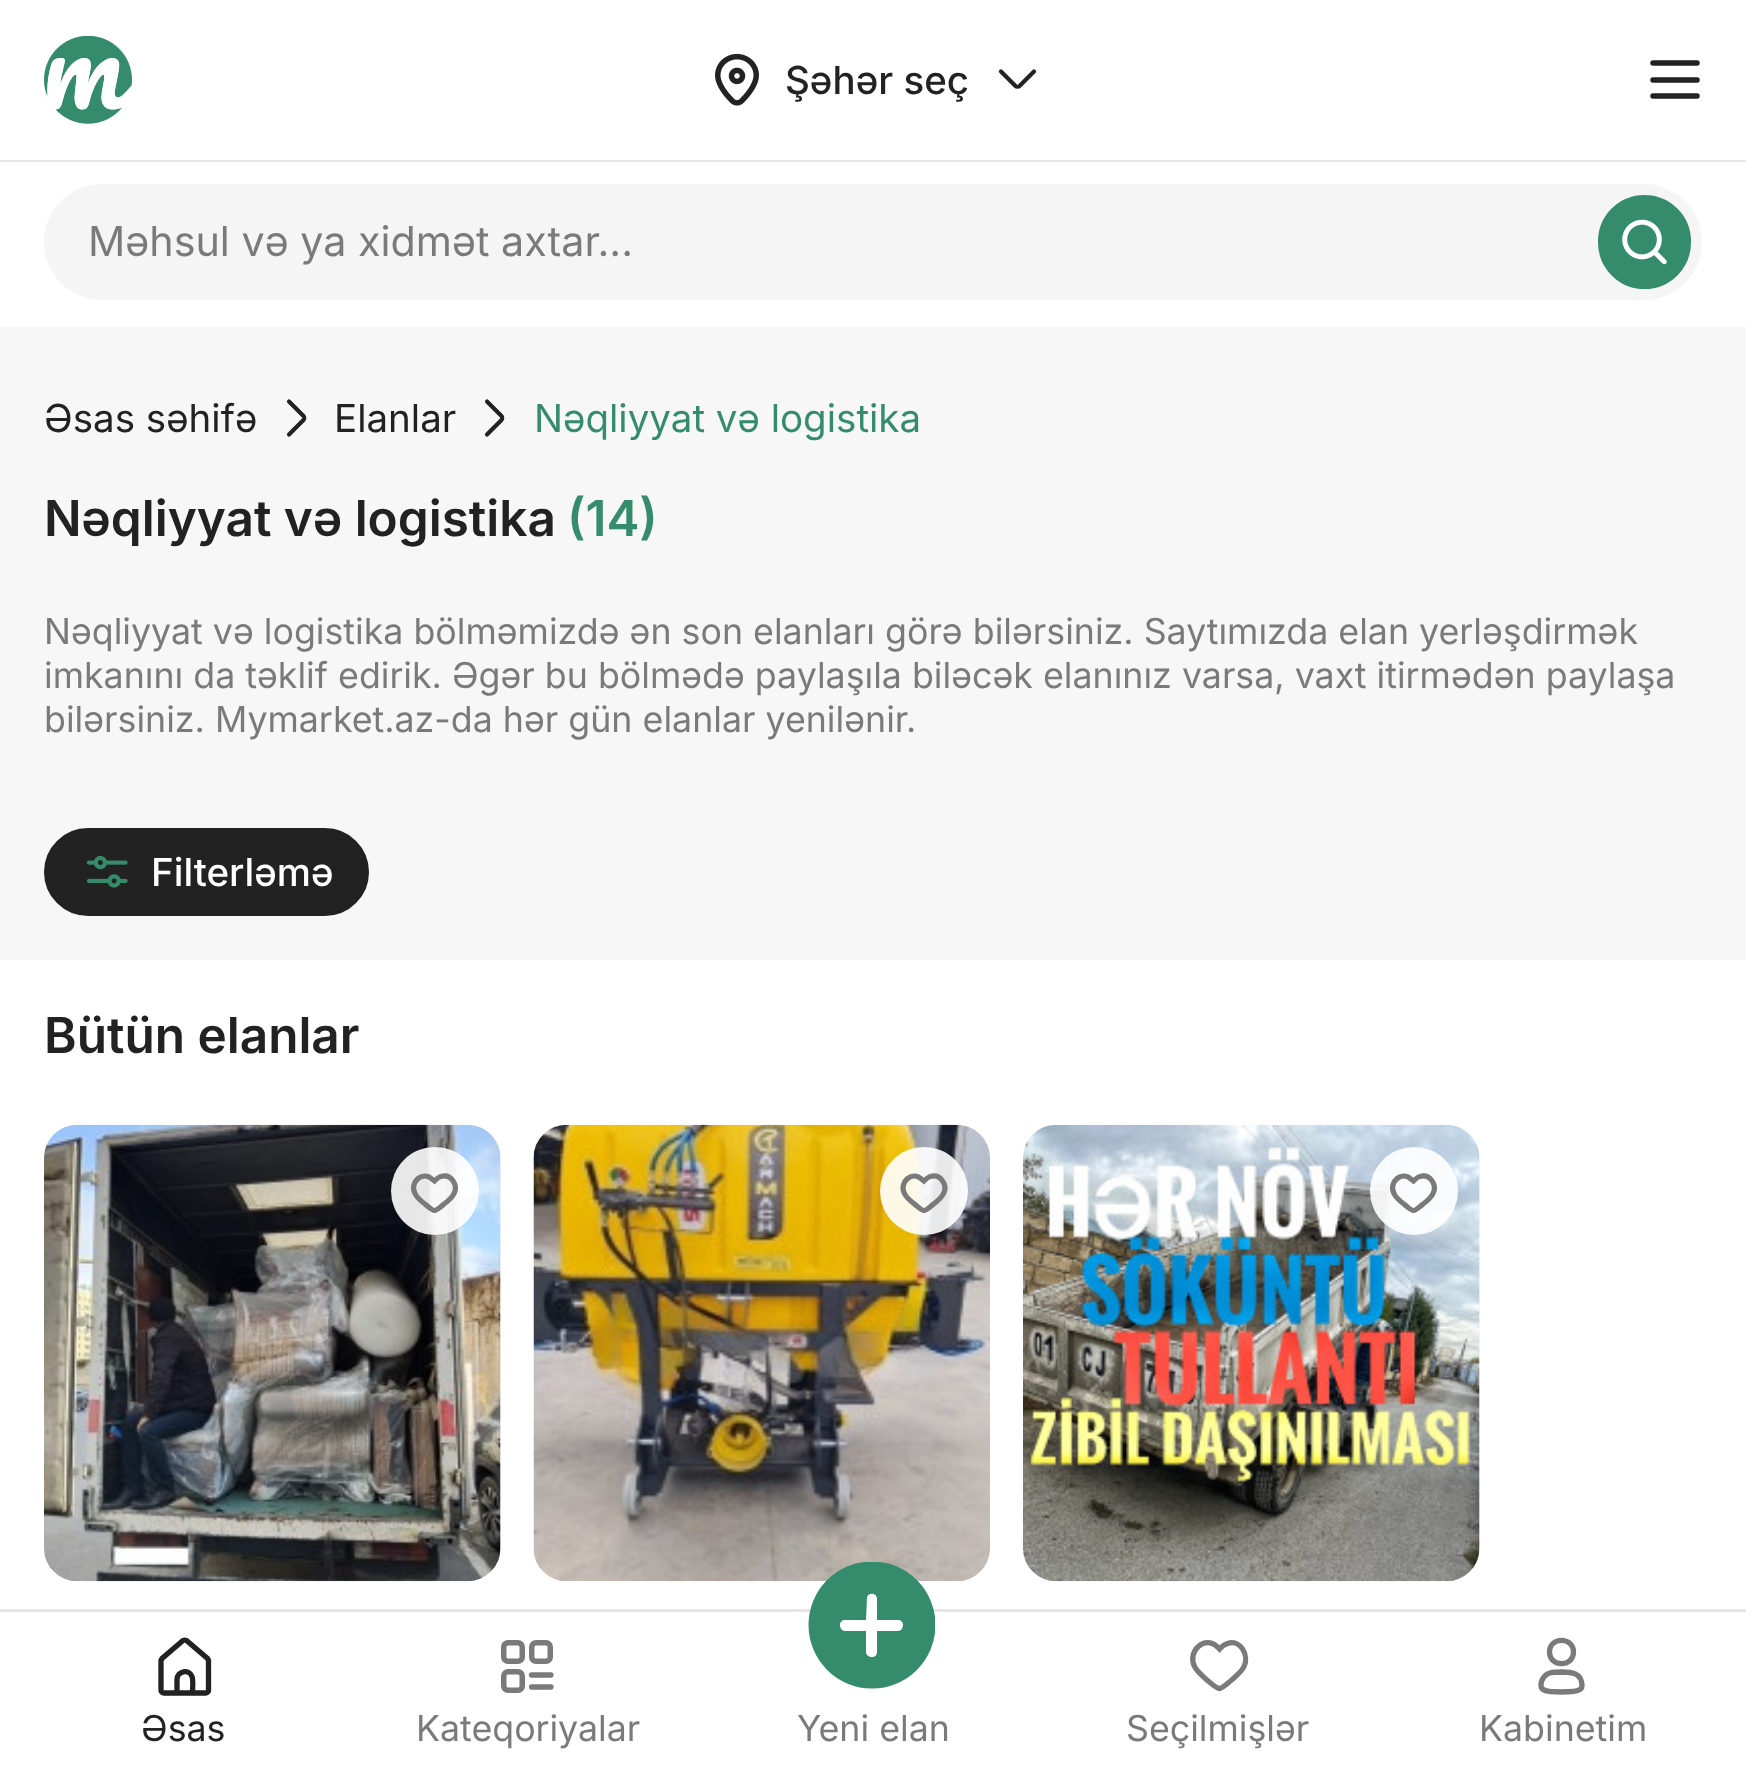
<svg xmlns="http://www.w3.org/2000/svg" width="1746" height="1770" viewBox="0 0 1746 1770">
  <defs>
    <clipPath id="clip1"><path d="M808 1562h127v127H808z"/></clipPath>
  </defs>
  <rect width="100%" height="100%" fill="#f7f7f7"/>
  <path d="M0 0h1746v327H0z" fill="#fff"/>
  <path d="M0 160h1746v2H0z" fill="#e6e6e6"/>
  <image x="44" y="36" width="88" height="88" href="img/1.png"/>
  <image x="715" y="53" width="44" height="53" href="img/2.png"/>
  <path d="M1001 71.5L1015.5 86C1016.5 87 1018.5 87 1019.5 86L1034 71.5" fill="none" stroke="#222" stroke-width="4.1" stroke-linecap="round"/>
  <rect x="44" y="184" width="1658" height="116" rx="58" fill="#f5f5f5"/>
  <rect x="1599.5" y="196.5" width="90" height="91" rx="45" fill="#358c6c" stroke="#358c6c" stroke-width="3"/>
  <image x="1622" y="219" width="45" height="46" href="img/3.png"/>
  <path d="M1653 63H1697M1653 80H1697M1653 96H1697" fill="none" stroke="#222" stroke-width="5.5" stroke-linecap="round"/>
  <path d="M289 401.5L303.5 416C304.5 417 304.5 419 303.5 420L289 434.5" fill="none" stroke="#222" stroke-width="4.1" stroke-linecap="round"/>
  <path d="M487 401.5L501.5 416C502.5 417 502.5 419 501.5 420L487 434.5" fill="none" stroke="#222" stroke-width="4.1" stroke-linecap="round"/>
  <rect x="45.5" y="829.5" width="322" height="85" rx="42.5" fill="#222" stroke="#222" stroke-width="3"/>
  <image x="86" y="855" width="42" height="33" href="img/4.png"/>
  <path d="M0 960h1746v649H0z" fill="#fff"/>
  <rect x="44" y="1125" width="457" height="456" rx="33" fill="#f7f7f7"/>
  <image x="44" y="1124" width="457" height="458" href="img/5.png"/>
  <circle cx="435" cy="1191" r="44" fill="#ffffffe6"/>
  <path d="M432.5 1179.5L434.5 1181C436.5 1179 438.5 1177 441 1176.5C451 1173.5 458.5 1185 454 1193.5C452 1198 447.5 1201.5 443.5 1204.5C442 1205.5 437 1210.5 434.5 1210.5C432 1210.5 427 1205.5 425.5 1204.5C421.5 1201.5 417 1198 415 1193.5C409 1182 423 1170 432.5 1179.5Z" fill="none" stroke="#7a7a7a" stroke-width="5.2" stroke-linecap="round"/>
  <image x="533" y="1124" width="457" height="458" href="img/6.png"/>
  <circle cx="924" cy="1191" r="44" fill="#ffffffe6"/>
  <path d="M922 1179.5L924 1181C926 1179 928 1177 930.5 1176.5C940.5 1173.5 948 1185 943.5 1193.5C941.5 1198 937 1201.5 933 1204.5C931.5 1205.5 926.5 1210.5 924 1210.5C921.5 1210.5 916.5 1205.5 915 1204.5C911 1201.5 906.5 1198 904.5 1193.5C898.5 1182 912.5 1170 922 1179.5Z" fill="none" stroke="#7a7a7a" stroke-width="5.2" stroke-linecap="round"/>
  <rect x="1023" y="1125" width="457" height="456" rx="33" fill="#f7f7f7"/>
  <image x="1023" y="1124" width="457" height="458" href="img/7.png"/>
  <circle cx="1414" cy="1191" r="44" fill="#ffffffe6"/>
  <path d="M1411.5 1179.5L1413.5 1181C1415.5 1179 1417.5 1177 1420 1176.5C1430 1173.5 1437.5 1185 1433 1193.5C1431 1198 1426.5 1201.5 1422.5 1204.5C1421 1205.5 1416 1210.5 1413.5 1210.5C1411 1210.5 1406 1205.5 1404.5 1204.5C1400.5 1201.5 1396 1198 1394 1193.5C1388 1182 1402 1170 1411.5 1179.5Z" fill="none" stroke="#7a7a7a" stroke-width="5.2" stroke-linecap="round"/>
  <path d="M0 1612h1746v158H0z" fill="#fff"/>
  <path d="M0 1609h1746v3H0z" fill="#e6e6e6"/>
  <path d="M183 1640.5C184 1640 185.5 1640 186.5 1640.5L207.5 1658.5L208.5 1660.5V1690.5C208.5 1691.5 207.5 1693 206 1693H163.5C162 1693 161 1691.5 161 1690.5V1660.5L162 1658.5ZM177 1679.5C177 1671 189 1668.5 192 1676.5C193.5 1679.5 192.5 1689 192.5 1693H177Z" fill="none" stroke="#222" stroke-width="5.3"/>
  <rect x="503.75" y="1642.75" width="18.5" height="18.5" rx="4.25" fill="none" stroke="#7a7a7a" stroke-width="5.5"/>
  <rect x="503.75" y="1671.75" width="18.5" height="18.5" rx="4.25" fill="none" stroke="#7a7a7a" stroke-width="5.5"/>
  <rect x="531.75" y="1642.75" width="18.5" height="18.5" rx="4.25" fill="none" stroke="#7a7a7a" stroke-width="5.5"/>
  <path d="M531.5 1675H551M531.5 1687H551" fill="none" stroke="#7a7a7a" stroke-width="5.3" stroke-linecap="round"/>
  <g clip-path="url(#clip1)">
    <circle cx="872" cy="1625" r="63.5" fill="#358c6c"/>
  </g>
  <path d="M877 1599C877 1593 869 1592 867 1597L866 1620H845C842 1620 840 1622 840 1625C840 1628 842 1631 845 1631H866V1652C866 1655 869 1657 872 1657C875 1657 877 1655 877 1652V1631H898C901 1631 903 1628 903 1625C903 1622 901 1620 898 1620H877Z" fill="#fff" fill-rule="evenodd"/>
  <path d="M1217.5 1647L1219.5 1649C1221.5 1646.5 1224 1644.5 1227.5 1643.5C1240.5 1639 1249.5 1655.5 1244 1666.5C1241.5 1672 1235.5 1676.5 1231 1680.5C1229 1682 1222 1688.5 1219.5 1688.5C1216.5 1688.5 1209.5 1682 1207.5 1680.5C1203 1676.5 1197.5 1672 1194.5 1666.5C1187 1651.5 1204.5 1634.5 1217.5 1647Z" fill="none" stroke="#7a7a7a" stroke-width="5.3" stroke-linecap="round"/>
  <path d="M1573.5 1652C1573.5 1667.5 1549.5 1667.5 1549.5 1652C1549.5 1636.5 1573.5 1636.5 1573.5 1652ZM1541 1685.5C1541 1679 1545.5 1673.5 1551.5 1672.5L1561.5 1672C1571.5 1672 1581.5 1672.5 1582 1685.5C1582.5 1690.5 1576.5 1691 1573 1691.5L1561.5 1692L1550 1691.5C1546 1691 1541 1690.5 1541 1685.5Z" fill="none" stroke="#7a7a7a" stroke-width="5.3"/>
  <text x="785" y="94" font-family="Inter" font-size="38.5" font-weight="500" fill="#222">Şəhər seç</text>
  <text x="88" y="256" font-family="Inter" font-size="41.25" fill="#7a7a7a">Məhsul və ya xidmət axtar...</text>
  <g font-family="Inter" font-size="38.5" fill="#222">
    <text x="44" y="432">Əsas səhifə</text>
    <text x="334" y="432">Elanlar</text>
  </g>
  <text x="534" y="432" font-family="Inter" font-size="38.5" fill="#358c6c">Nəqliyyat və logistika</text>
  <text x="44" y="536" font-family="Inter" font-size="49.5" font-weight="600" fill="#222">Nəqliyyat və logistika</text>
  <text x="567" y="536" font-family="Inter" font-size="49.5" font-weight="600" fill="#358c6c">(14)</text>
  <g font-family="Inter" font-size="35.75" fill="#7a7a7a">
    <text x="44" y="644">Nəqliyyat və logistika bölməmizdə ən son elanları görə bilərsiniz. Saytımızda elan yerləşdirmək</text>
    <text x="44" y="688">imkanını da təklif edirik. Əgər bu bölmədə paylaşıla biləcək elanınız varsa, vaxt itirmədən paylaşa</text>
    <text x="44" y="732">bilərsiniz. Mymarket.az-da hər gün elanlar yenilənir.</text>
  </g>
  <text x="151" y="886" font-family="Inter" font-size="38.5" font-weight="500" fill="#fff">Filterləmə</text>
  <text x="44" y="1053" font-family="Inter" font-size="49.5" font-weight="600" fill="#222">Bütün elanlar</text>
  <text x="141" y="1741" font-family="Inter" font-size="35.75" fill="#222">Əsas</text>
  <g font-family="Inter" font-size="35.75" fill="#7a7a7a">
    <text x="416" y="1741">Kateqoriyalar</text>
    <text x="797" y="1741">Yeni elan</text>
    <text x="1126" y="1741">Seçilmişlər</text>
    <text x="1479" y="1741">Kabinetim</text>
  </g>
</svg>
